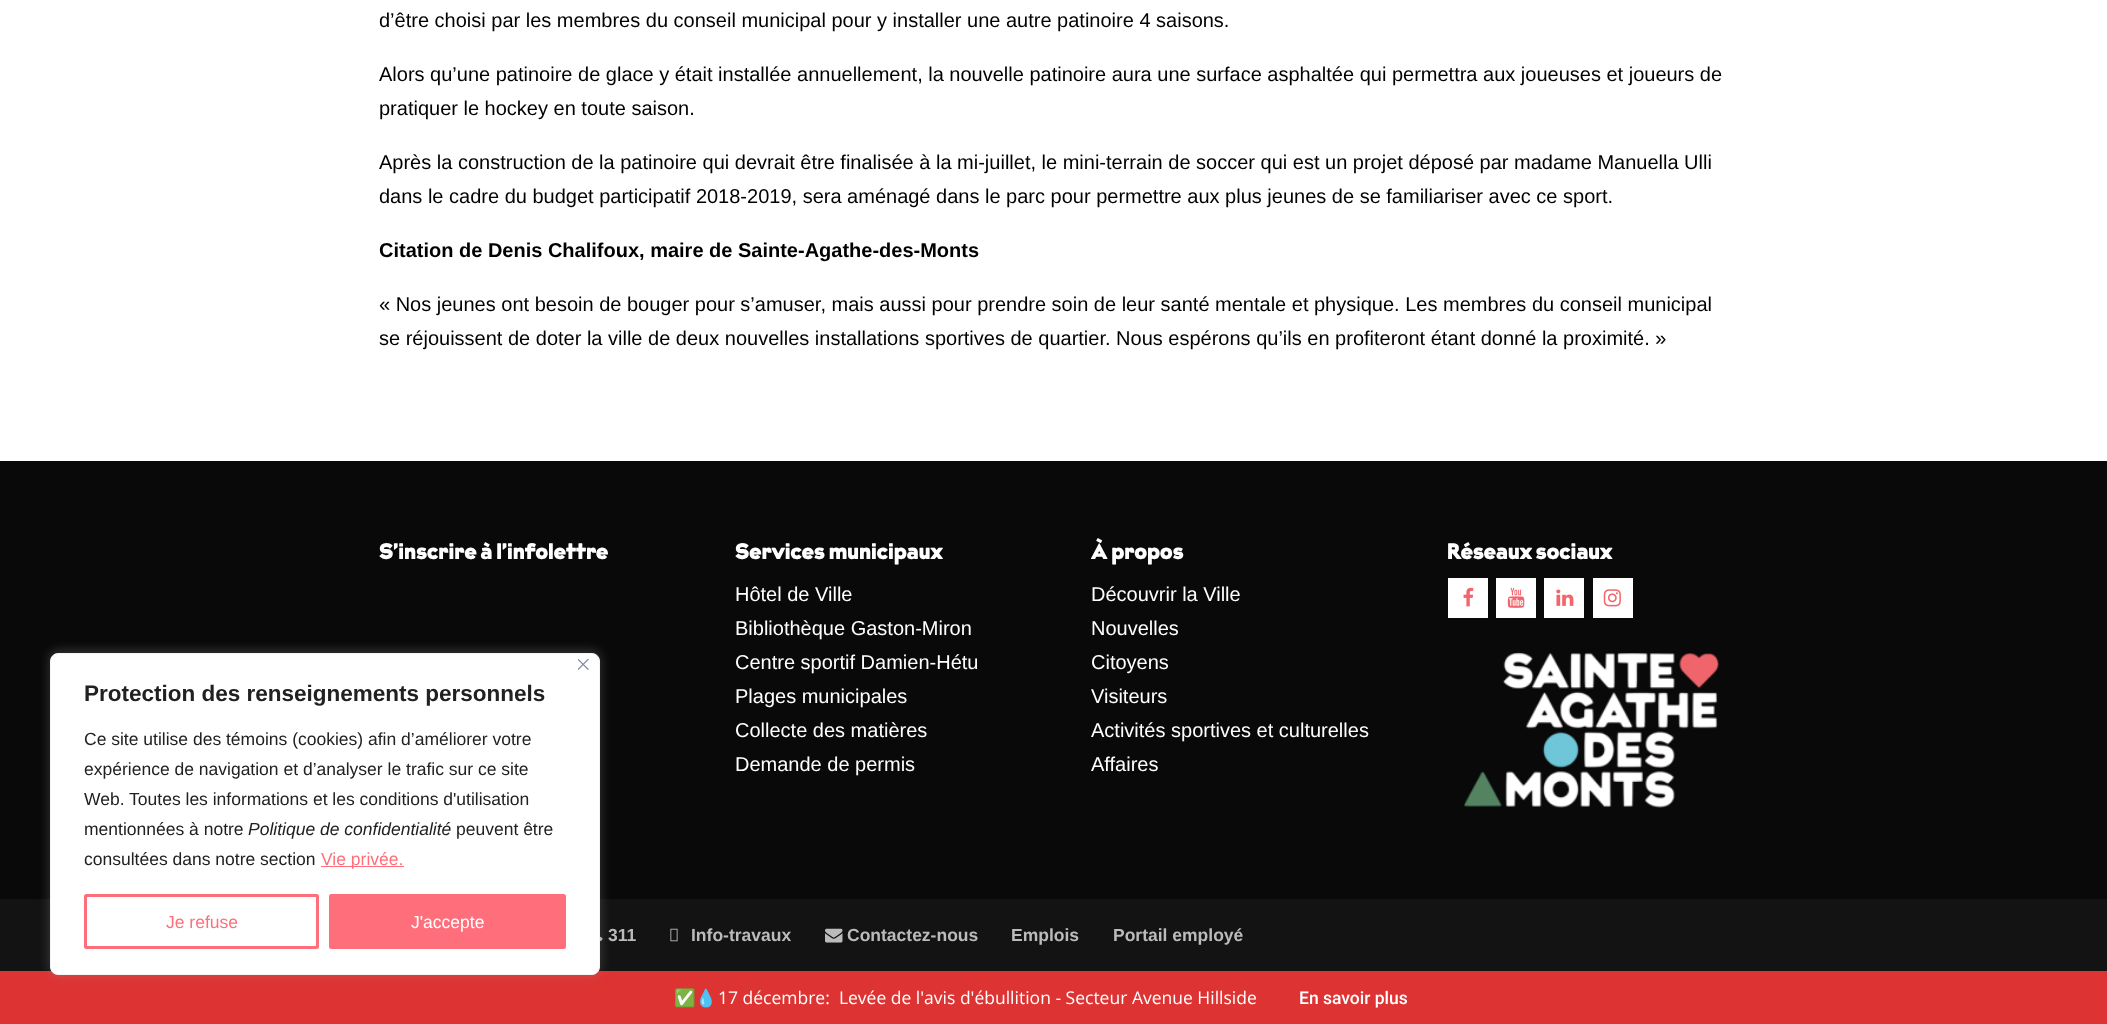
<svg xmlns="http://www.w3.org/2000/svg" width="2107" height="1024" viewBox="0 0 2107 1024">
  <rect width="100%" height="100%" fill="#fff"/>
  <path d="M0 461h2107v438H0z" fill="#0a0909"/>
  <path d="M0 899h2107v72H0z" fill="#141313"/>
  <image x="600" y="936" width="3" height="6" href="img/7.png"/>
  <path d="M0 971h2107v53H0z" fill="#d33"/>
  <rect x="50" y="651" width="550" height="323" rx="8" fill="#acabab4d" filter="blur(6px)"/>
  <rect x="50.5" y="653.5" width="549" height="321" rx="7.5" fill="#fff" stroke="#f4f4f4"/>
  <image x="578" y="659" width="11" height="11" href="img/1.png"/>
  <path d="M321 866h83v1H321z" fill="#ff6f7b"/>
  <rect x="85.5" y="895.5" width="232" height="52" rx="1" fill="none" stroke="#ff6f7b" stroke-width="3"/>
  <rect x="330.5" y="895.5" width="234" height="52" rx="1" fill="#ff6f7b" stroke="#ff6f7b" stroke-width="3"/>
  <path d="M1448 578h40v40H1448z" fill="#fff"/>
  <image x="1463" y="587" width="11" height="20" href="img/2.png"/>
  <path d="M1496 578h40v40H1496z" fill="#fff"/>
  <image x="1507" y="587" width="18" height="21" href="img/3.png"/>
  <path d="M1544 578h40v40H1544z" fill="#fff"/>
  <image x="1556" y="589" width="18" height="17" href="img/4.png"/>
  <path d="M1593 578h40v40H1593z" fill="#fff"/>
  <image x="1603" y="589" width="18" height="18" href="img/5.png"/>
  <image x="1463" y="652" width="257" height="156" href="img/6.png"/>
  <image x="670" y="928" width="8" height="14" href="img/8.png"/>
  <image x="825" y="928" width="18" height="15" href="img/9.png"/>
  <text x="84" y="701" font-family="Liberation Sans" font-size="22.5" font-weight="bold" fill="#212121">Protection des renseignements personnels</text>
  <g font-family="Liberation Sans" font-size="17.5" fill="#212121">
    <text x="84" y="745">Ce site utilise des témoins (cookies) afin d’améliorer votre</text>
    <text x="84" y="775">expérience de navigation et d’analyser le trafic sur ce site</text>
    <text x="84" y="805">Web. Toutes les informations et les conditions d'utilisation</text>
    <text x="84" y="835">mentionnées à notre</text>
  </g>
  <text x="248" y="835" font-family="Liberation Sans" font-size="17.5" font-style="italic" fill="#212121">Politique de confidentialité</text>
  <g font-family="Liberation Sans" font-size="17.5" fill="#212121">
    <text x="456" y="835">peuvent être</text>
    <text x="84" y="865">consultées dans notre section</text>
  </g>
  <g font-family="Liberation Sans" font-size="17.5" fill="#ff6f7b">
    <text x="321" y="865">Vie privée.</text>
    <text x="166" y="928">Je refuse</text>
  </g>
  <text x="411" y="928" font-family="Liberation Sans" font-size="17.5" fill="#fff">J'accepte</text>
  <g font-family="Liberation Sans" font-size="20" fill="#000">
    <text x="379" y="27">d’être choisi par les membres du conseil municipal pour y installer une autre patinoire 4 saisons.</text>
    <text x="379" y="81">Alors qu’une patinoire de glace y était installée annuellement, la nouvelle patinoire aura une surface asphaltée qui permettra aux joueuses et joueurs de</text>
    <text x="379" y="115">pratiquer le hockey en toute saison.</text>
    <text x="379" y="169">Après la construction de la patinoire qui devrait être finalisée à la mi-juillet, le mini-terrain de soccer qui est un projet déposé par madame Manuella Ulli</text>
    <text x="379" y="203">dans le cadre du budget participatif 2018-2019, sera aménagé dans le parc pour permettre aux plus jeunes de se familiariser avec ce sport.</text>
  </g>
  <text x="379" y="257" font-family="Liberation Sans" font-size="20" font-weight="bold" fill="#000">Citation de Denis Chalifoux, maire de Sainte-Agathe-des-Monts</text>
  <g font-family="Liberation Sans" font-size="20" fill="#000">
    <text x="379" y="311">« Nos jeunes ont besoin de bouger pour s’amuser, mais aussi pour prendre soin de leur santé mentale et physique. Les membres du conseil municipal</text>
    <text x="379" y="345">se réjouissent de doter la ville de deux nouvelles installations sportives de quartier. Nous espérons qu’ils en profiteront étant donné la proximité. »</text>
  </g>
  <g font-family="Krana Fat" font-size="22.5" font-weight="900" fill="#fff">
    <text x="379" y="559">S’inscrire à l’infolettre</text>
    <text x="735" y="559">Services municipaux</text>
  </g>
  <g font-family="Liberation Sans" font-size="20" fill="#fff">
    <text x="735" y="601">Hôtel de Ville</text>
    <text x="735" y="635">Bibliothèque Gaston-Miron</text>
    <text x="735" y="669">Centre sportif Damien-Hétu</text>
    <text x="735" y="703">Plages municipales</text>
    <text x="735" y="737">Collecte des matières</text>
    <text x="735" y="771">Demande de permis</text>
  </g>
  <text x="1091" y="559" font-family="Krana Fat" font-size="22.5" font-weight="900" fill="#fff">À propos</text>
  <g font-family="Liberation Sans" font-size="20" fill="#fff">
    <text x="1091" y="601">Découvrir la Ville</text>
    <text x="1091" y="635">Nouvelles</text>
    <text x="1091" y="669">Citoyens</text>
    <text x="1091" y="703">Visiteurs</text>
    <text x="1091" y="737">Activités sportives et culturelles</text>
    <text x="1091" y="771">Affaires</text>
  </g>
  <text x="1447" y="559" font-family="Krana Fat" font-size="22.5" font-weight="900" fill="#fff">Réseaux sociaux</text>
  <g font-family="Liberation Sans" font-size="17.5" font-weight="bold" fill="#bbb">
    <text x="608" y="941">311</text>
    <text x="691" y="941">Info-travaux</text>
    <text x="847" y="941">Contactez-nous</text>
    <text x="1011" y="941">Emplois</text>
    <text x="1113" y="941">Portail employé</text>
  </g>
  <text x="674" y="1004" font-family="Noto Color Emoji" font-size="17.5" fill="#fff">✅💧</text>
  <text x="718" y="1004" font-family="Open Sans" font-size="17.5" fill="#fff" xml:space="preserve">17 décembre:  Levée de l'avis d'ébullition - Secteur Avenue Hillside</text>
  <text x="1299" y="1004" font-family="Roboto" font-size="17.5" font-weight="500" fill="#fff">En savoir plus</text>
</svg>
